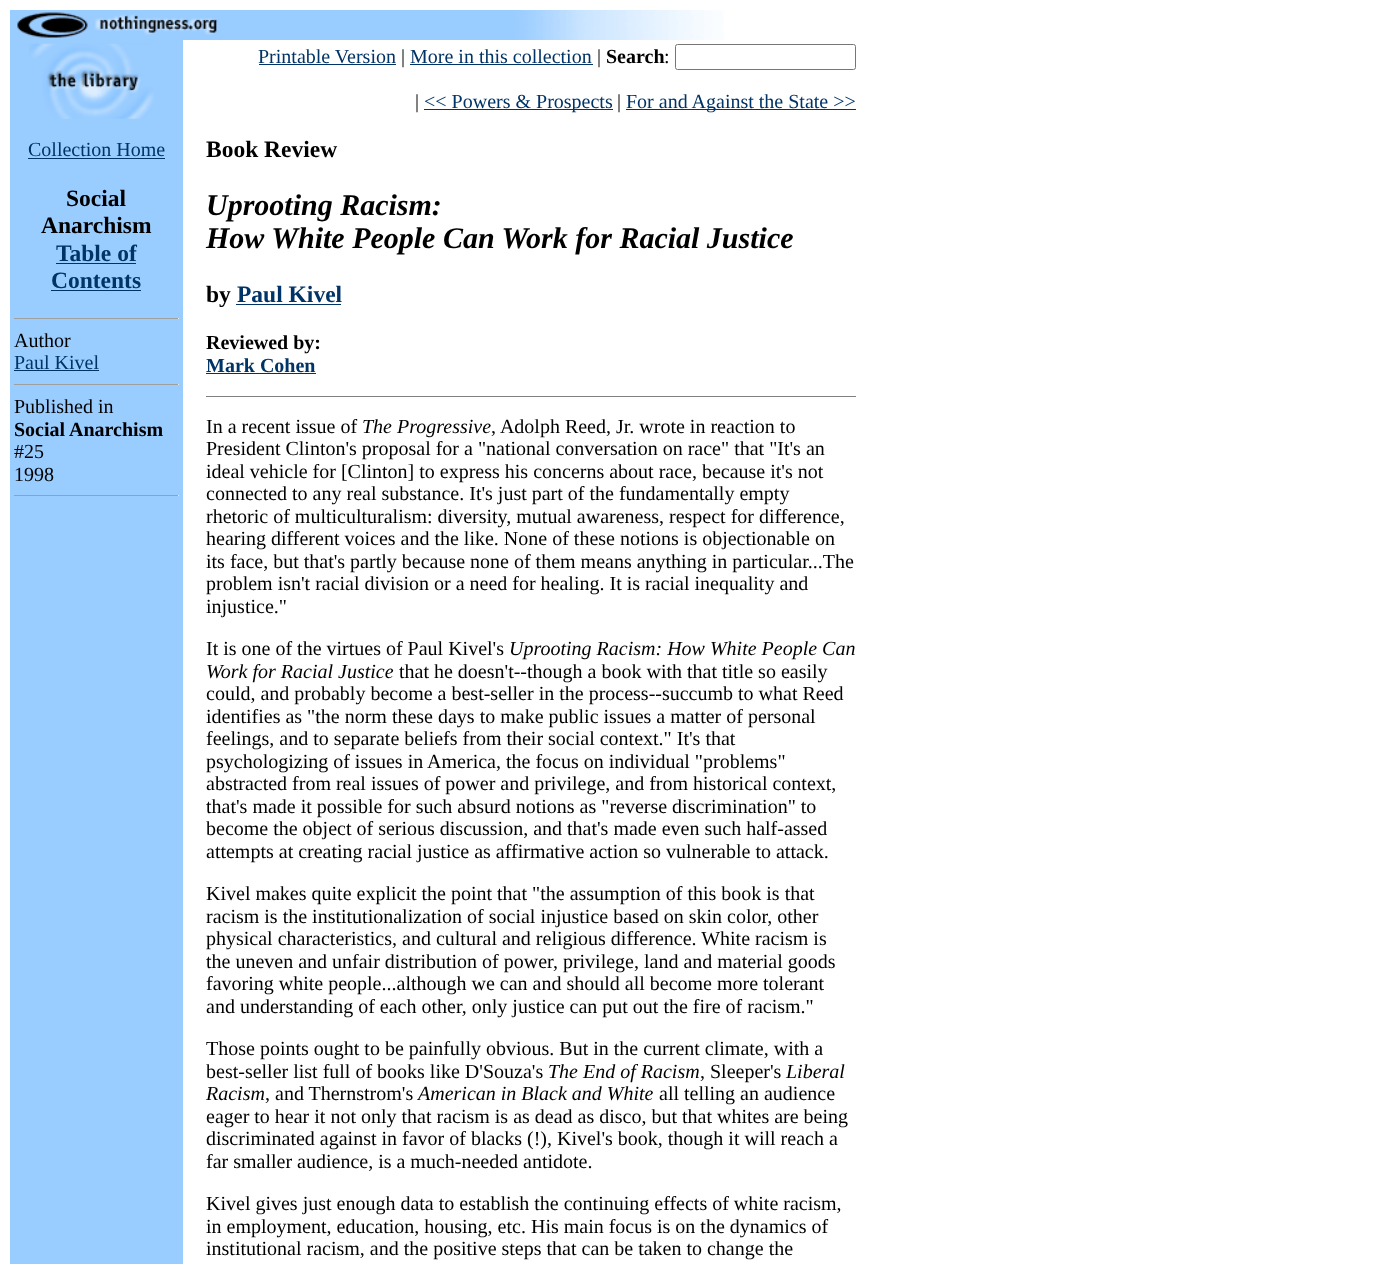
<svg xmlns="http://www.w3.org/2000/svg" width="1380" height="1264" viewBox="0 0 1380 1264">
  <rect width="100%" height="100%" fill="#fff"/>
  <image x="10" y="10" width="714" height="30" href="img/1.png"/>
  <path d="M10 40h173v1224H10z" fill="#9cf"/>
  <image x="29" y="43" width="125" height="76" href="img/2.png"/>
  <path d="M28 158h137v1H28z" fill="#036"/>
  <path d="M56 263h80v1H56z" fill="#036"/>
  <path d="M51 290h90v1H51z" fill="#036"/>
  <path d="M14 318h165v1H14z" fill="#9f9f9f"/>
  <path d="M178 318h1v1H178z" fill="#eee"/>
  <path d="M14 370h85v1H14z" fill="#036"/>
  <path d="M14 384h165v1H14z" fill="#9f9f9f"/>
  <path d="M178 384h1v1H178z" fill="#eee"/>
  <path d="M14 495h165v1H14z" fill="#9f9f9f"/>
  <path d="M178 495h1v1H178z" fill="#eee"/>
  <path d="M259 64h137v1H259z" fill="#036"/>
  <path d="M410 64h183v1H410z" fill="#036"/>
  <rect x="675.5" y="44.5" width="180" height="25" rx="2" fill="none" stroke="#767676"/>
  <path d="M424 109h189v1H424z" fill="#036"/>
  <path d="M626 109h230v1H626z" fill="#036"/>
  <path d="M236 304h105v1H236z" fill="#036"/>
  <path d="M206 373h110v1H206z" fill="#036"/>
  <path d="M206 396h650v1H206z" fill="#808080"/>
  <text x="28" y="156" font-family="Liberation Serif" font-size="20" fill="#036">Collection Home</text>
  <g font-family="Liberation Serif" font-size="23.5" font-weight="bold" fill="#000">
    <text x="66" y="206">Social</text>
    <text x="41" y="233">Anarchism</text>
  </g>
  <g font-family="Liberation Serif" font-size="23.5" font-weight="bold" fill="#036">
    <text x="56" y="261">Table of</text>
    <text x="51" y="288">Contents</text>
  </g>
  <text x="14" y="347" font-family="Liberation Serif" font-size="20" fill="#000">Author</text>
  <text x="14" y="369" font-family="Liberation Serif" font-size="20" fill="#036">Paul Kivel</text>
  <text x="14" y="413" font-family="Liberation Serif" font-size="20" fill="#000">Published in</text>
  <text x="14" y="436" font-family="Liberation Serif" font-size="20" font-weight="bold" fill="#000">Social Anarchism</text>
  <g font-family="Liberation Serif" font-size="20" fill="#000">
    <text x="14" y="458">#25</text>
    <text x="14" y="481">1998</text>
  </g>
  <text x="258" y="63" font-family="Liberation Serif" font-size="20" fill="#036">Printable Version</text>
  <text x="401" y="63" font-family="Liberation Serif" font-size="20" fill="#000">|</text>
  <text x="410" y="63" font-family="Liberation Serif" font-size="20" fill="#036">More in this collection</text>
  <text x="597" y="63" font-family="Liberation Serif" font-size="20" fill="#000">|</text>
  <text x="606" y="63" font-family="Liberation Serif" font-size="20" font-weight="bold" fill="#000">Search</text>
  <g font-family="Liberation Serif" font-size="20" fill="#000">
    <text x="664" y="63">:</text>
    <text x="415" y="108">|</text>
  </g>
  <text x="424" y="108" font-family="Liberation Serif" font-size="20" fill="#036">&lt;&lt; Powers &amp; Prospects</text>
  <text x="617" y="108" font-family="Liberation Serif" font-size="20" fill="#000">|</text>
  <text x="626" y="108" font-family="Liberation Serif" font-size="20" fill="#036">For and Against the State &gt;&gt;</text>
  <text x="206" y="157" font-family="Liberation Serif" font-size="23.5" font-weight="bold" fill="#000">Book Review</text>
  <g font-family="Liberation Serif" font-size="30" font-weight="bold" font-style="italic" fill="#000">
    <text x="206" y="215">Uprooting Racism:</text>
    <text x="206" y="248">How White People Can Work for Racial Justice</text>
  </g>
  <text x="206" y="302" font-family="Liberation Serif" font-size="23.5" font-weight="bold" fill="#000">by</text>
  <text x="237" y="302" font-family="Liberation Serif" font-size="23.5" font-weight="bold" fill="#036">Paul Kivel</text>
  <text x="206" y="349" font-family="Liberation Serif" font-size="20" font-weight="bold" fill="#000">Reviewed by:</text>
  <text x="206" y="372" font-family="Liberation Serif" font-size="20" font-weight="bold" fill="#036">Mark Cohen</text>
  <text x="206" y="433" font-family="Liberation Serif" font-size="20" fill="#000">In a recent issue of</text>
  <text x="362" y="433" font-family="Liberation Serif" font-size="20" font-style="italic" fill="#000">The Progressive</text>
  <g font-family="Liberation Serif" font-size="20" fill="#000">
    <text x="491" y="433">, Adolph Reed, Jr. wrote in reaction to</text>
    <text x="206" y="455">President Clinton's proposal for a "national conversation on race" that "It's an</text>
    <text x="206" y="478">ideal vehicle for [Clinton] to express his concerns about race, because it's not</text>
    <text x="206" y="500">connected to any real substance. It's just part of the fundamentally empty</text>
    <text x="206" y="523">rhetoric of multiculturalism: diversity, mutual awareness, respect for difference,</text>
    <text x="206" y="545">hearing different voices and the like. None of these notions is objectionable on</text>
    <text x="206" y="568">its face, but that's partly because none of them means anything in particular...The</text>
    <text x="206" y="590">problem isn't racial division or a need for healing. It is racial inequality and</text>
    <text x="206" y="613">injustice."</text>
    <text x="206" y="655">It is one of the virtues of Paul Kivel's</text>
  </g>
  <g font-family="Liberation Serif" font-size="20" font-style="italic" fill="#000">
    <text x="509" y="655">Uprooting Racism: How White People Can</text>
    <text x="206" y="678">Work for Racial Justice</text>
  </g>
  <g font-family="Liberation Serif" font-size="20" fill="#000">
    <text x="399" y="678">that he doesn't--though a book with that title so easily</text>
    <text x="206" y="700">could, and probably become a best-seller in the process--succumb to what Reed</text>
    <text x="206" y="723">identifies as "the norm these days to make public issues a matter of personal</text>
    <text x="206" y="745">feelings, and to separate beliefs from their social context." It's that</text>
    <text x="206" y="768">psychologizing of issues in America, the focus on individual "problems"</text>
    <text x="206" y="790">abstracted from real issues of power and privilege, and from historical context,</text>
    <text x="206" y="813">that's made it possible for such absurd notions as "reverse discrimination" to</text>
    <text x="206" y="835">become the object of serious discussion, and that's made even such half-assed</text>
    <text x="206" y="858">attempts at creating racial justice as affirmative action so vulnerable to attack.</text>
    <text x="206" y="900">Kivel makes quite explicit the point that "the assumption of this book is that</text>
    <text x="206" y="923">racism is the institutionalization of social injustice based on skin color, other</text>
    <text x="206" y="945">physical characteristics, and cultural and religious difference. White racism is</text>
    <text x="206" y="968">the uneven and unfair distribution of power, privilege, land and material goods</text>
    <text x="206" y="990">favoring white people...although we can and should all become more tolerant</text>
    <text x="206" y="1013">and understanding of each other, only justice can put out the fire of racism."</text>
    <text x="206" y="1055">Those points ought to be painfully obvious. But in the current climate, with a</text>
    <text x="206" y="1078">best-seller list full of books like D'Souza's</text>
  </g>
  <text x="548" y="1078" font-family="Liberation Serif" font-size="20" font-style="italic" fill="#000">The End of Racism</text>
  <text x="700" y="1078" font-family="Liberation Serif" font-size="20" fill="#000">, Sleeper's</text>
  <g font-family="Liberation Serif" font-size="20" font-style="italic" fill="#000">
    <text x="786" y="1078">Liberal</text>
    <text x="206" y="1100">Racism</text>
  </g>
  <text x="265" y="1100" font-family="Liberation Serif" font-size="20" fill="#000">, and Thernstrom's</text>
  <text x="418" y="1100" font-family="Liberation Serif" font-size="20" font-style="italic" fill="#000">American in Black and White</text>
  <g font-family="Liberation Serif" font-size="20" fill="#000">
    <text x="659" y="1100">all telling an audience</text>
    <text x="206" y="1123">eager to hear it not only that racism is as dead as disco, but that whites are being</text>
    <text x="206" y="1145">discriminated against in favor of blacks (!), Kivel's book, though it will reach a</text>
    <text x="206" y="1168">far smaller audience, is a much-needed antidote.</text>
    <text x="206" y="1210">Kivel gives just enough data to establish the continuing effects of white racism,</text>
    <text x="206" y="1233">in employment, education, housing, etc. His main focus is on the dynamics of</text>
    <text x="206" y="1255">institutional racism, and the positive steps that can be taken to change the</text>
  </g>
</svg>
